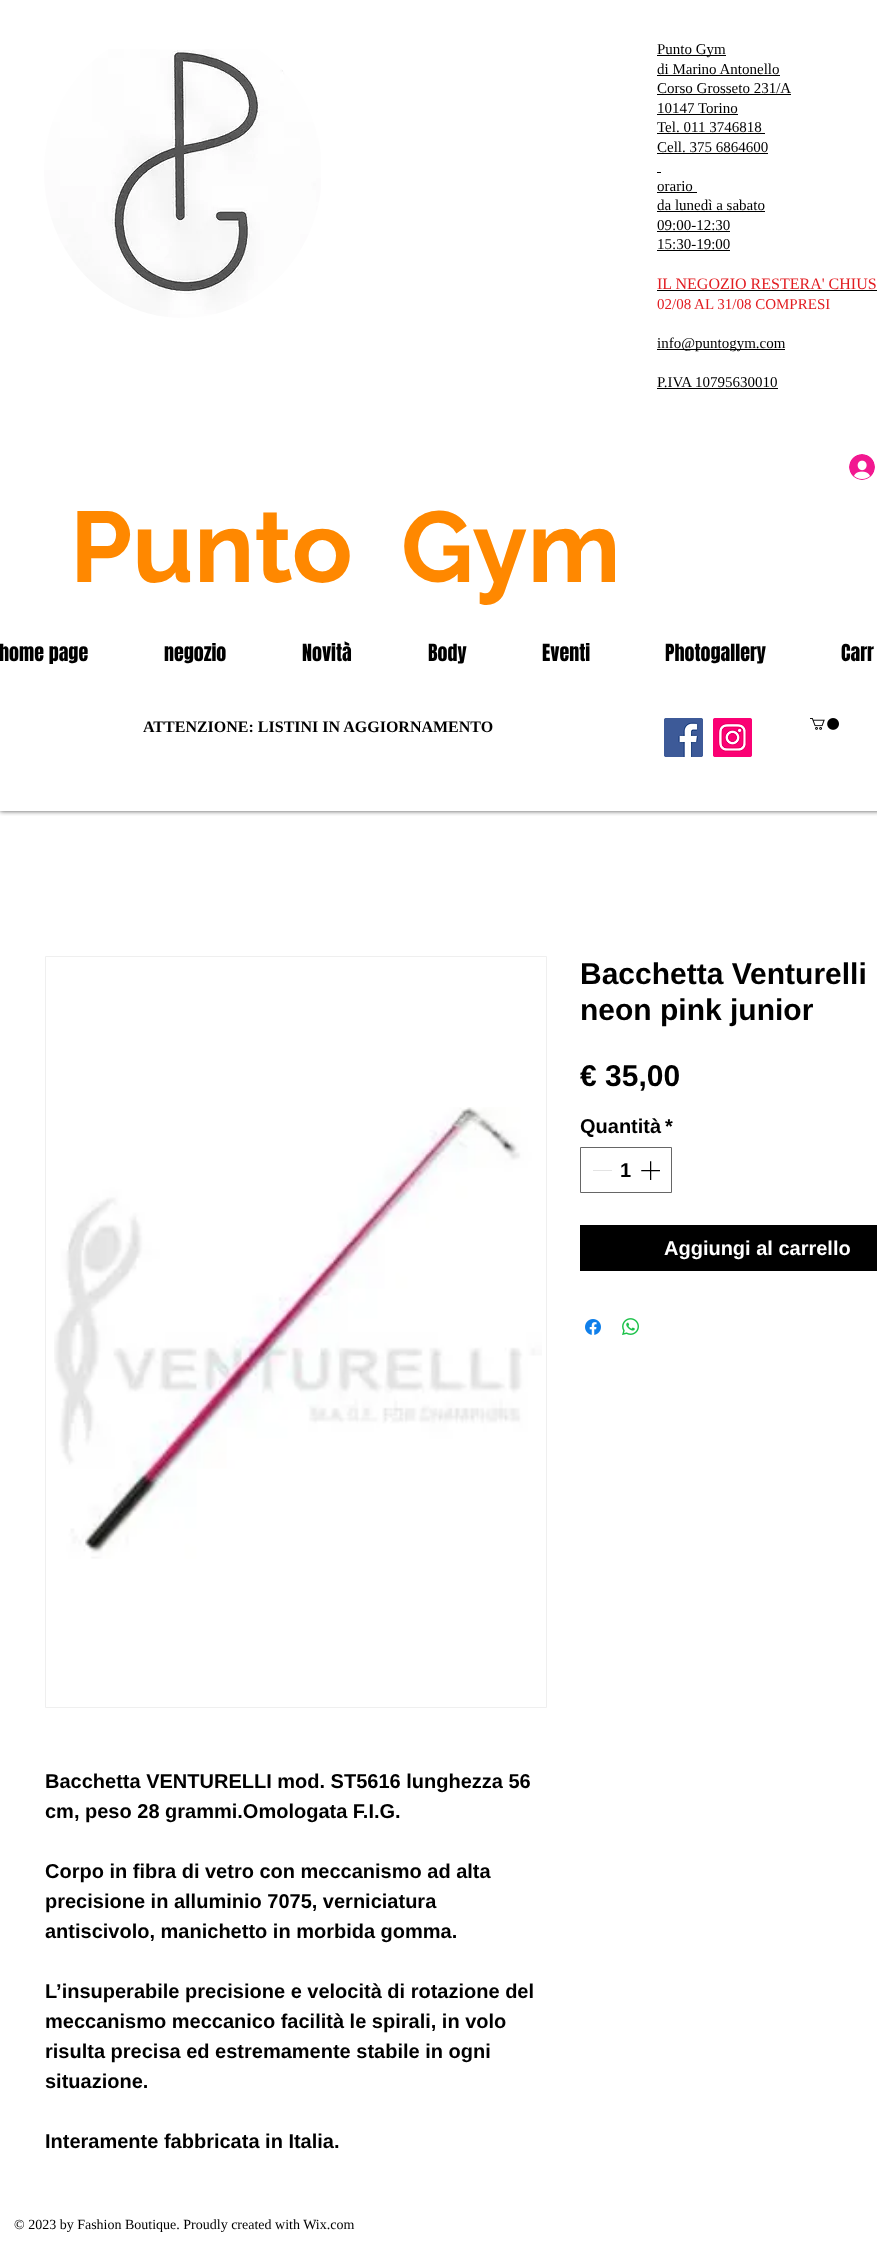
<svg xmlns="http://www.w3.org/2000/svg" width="877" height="2250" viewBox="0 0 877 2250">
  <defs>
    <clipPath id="clip1"><path d="M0 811h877v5H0z"/></clipPath>
  </defs>
  <rect width="100%" height="100%" fill="#fff"/>
  <g clip-path="url(#clip1)">
    <path d="M0 0h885v811H0z" fill="#000000b3" filter="blur(2.5px)"/>
  </g>
  <image x="44" y="49" width="277" height="269" href="img/1.png"/>
  <path d="M657 55h69v1H657z" fill="#000"/>
  <path d="M657 75h123v1H657z" fill="#000"/>
  <path d="M657 94h134v1H657z" fill="#000"/>
  <path d="M657 114h81v1H657z" fill="#000"/>
  <path d="M657 133h108v1H657z" fill="#000"/>
  <path d="M657 153h111v1H657z" fill="#000"/>
  <path d="M657 172h4v1H657z" fill="#000"/>
  <path d="M657 192h40v1H657z" fill="#000"/>
  <path d="M657 211h108v1H657z" fill="#000"/>
  <path d="M657 231h73v1H657z" fill="#000"/>
  <path d="M657 250h73v1H657z" fill="#000"/>
  <path d="M657 290h220v1H657z" fill="#000"/>
  <path d="M657 349h128v1H657z" fill="#000"/>
  <path d="M657 388h121v1H657z" fill="#000"/>
  <image x="849" y="454" width="26" height="26" href="img/2.png"/>
  <image x="664" y="718" width="39" height="39" href="img/3.png"/>
  <image x="713" y="718" width="39" height="39" href="img/4.png"/>
  <image x="810" y="718" width="29" height="12" href="img/5.png"/>
  <path d="M580.5 1147.5h91v45H580.5z" fill="none" stroke="#666"/>
  <path d="M593 1170h19v1H593z" fill="#e3e3e3"/>
  <image x="641" y="1161" width="19" height="19" href="img/6.png"/>
  <path d="M580 1225h297v46H580z" fill="#000"/>
  <image x="585" y="1319" width="16" height="16" href="img/7.png"/>
  <image x="622" y="1318" width="17" height="17" href="img/8.png"/>
  <path d="M45.5 956.5h501v751H45.5z" fill="none" stroke="#efefef"/>
  <image x="54" y="1107" width="488" height="452" href="img/9.png"/>
  <g font-family="Liberation Serif" font-size="15" fill="#000">
    <text x="657" y="54">Punto Gym</text>
    <text x="657" y="74">di Marino Antonello</text>
    <text x="657" y="93">Corso Grosseto 231/A</text>
    <text x="657" y="113">10147 Torino</text>
    <text x="657" y="132">Tel. 011 3746818</text>
    <text x="657" y="152">Cell. 375 6864600</text>
    <text x="657" y="191">orario</text>
    <text x="657" y="210">da lunedì a sabato</text>
    <text x="657" y="230">09:00-12:30</text>
    <text x="657" y="249">15:30-19:00</text>
  </g>
  <text x="657" y="289" font-family="Liberation Serif" font-size="16" fill="#e21c21">IL NEGOZIO RESTERA' CHIUS</text>
  <text x="657" y="309" font-family="Liberation Serif" font-size="15" fill="#e21c21">02/08 AL 31/08 COMPRESI</text>
  <g font-family="Liberation Serif" font-size="15" fill="#000">
    <text x="657" y="348">info@puntogym.com</text>
    <text x="657" y="387">P.IVA 10795630010</text>
  </g>
  <g font-family="Raleway" font-size="100" font-weight="bold" fill="#f80">
    <text x="70" y="582">Punto</text>
    <text x="401" y="582">Gym</text>
  </g>
  <g font-family="Anton" font-size="20" fill="#000">
    <text x="-1" y="661">home page</text>
    <text x="164" y="661">negozio</text>
    <text x="302" y="661">Novità</text>
    <text x="428" y="661">Body</text>
    <text x="542" y="661">Eventi</text>
    <text x="665" y="661">Photogallery</text>
    <text x="841" y="661">Carr</text>
  </g>
  <text x="143" y="732" font-family="Liberation Serif" font-size="16" font-weight="bold" fill="#000">ATTENZIONE: LISTINI IN AGGIORNAMENTO</text>
  <g font-family="Liberation Sans" font-size="30" font-weight="bold" fill="#000">
    <text x="580" y="984">Bacchetta Venturelli</text>
    <text x="580" y="1020">neon pink junior</text>
    <text x="580" y="1086">€ 35,00</text>
  </g>
  <g font-family="Liberation Sans" font-size="20" font-weight="bold" fill="#000">
    <text x="580" y="1133">Quantità</text>
    <text x="665" y="1133">*</text>
    <text x="620" y="1177">1</text>
  </g>
  <text x="664" y="1255" font-family="Liberation Sans" font-size="20" font-weight="bold" fill="#fff">Aggiungi al carrello</text>
  <g font-family="Liberation Sans" font-size="20" font-weight="bold" fill="#000">
    <text x="45" y="1788">Bacchetta VENTURELLI mod. ST5616 lunghezza 56</text>
    <text x="45" y="1818">cm, peso 28 grammi.Omologata F.I.G.</text>
    <text x="45" y="1878">Corpo in fibra di vetro con meccanismo ad alta</text>
    <text x="45" y="1908">precisione in alluminio 7075, verniciatura</text>
    <text x="45" y="1938">antiscivolo, manichetto in morbida gomma.</text>
    <text x="45" y="1998">L’insuperabile precisione e velocità di rotazione del</text>
    <text x="45" y="2028">meccanismo meccanico facilità le spirali, in volo</text>
    <text x="45" y="2058">risulta precisa ed estremamente stabile in ogni</text>
    <text x="45" y="2088">situazione.</text>
    <text x="45" y="2148">Interamente fabbricata in Italia.</text>
  </g>
  <text x="14" y="2229" font-family="Liberation Serif" font-size="14" fill="#000">© 2023 by Fashion Boutique. Proudly created with Wix.com</text>
</svg>
